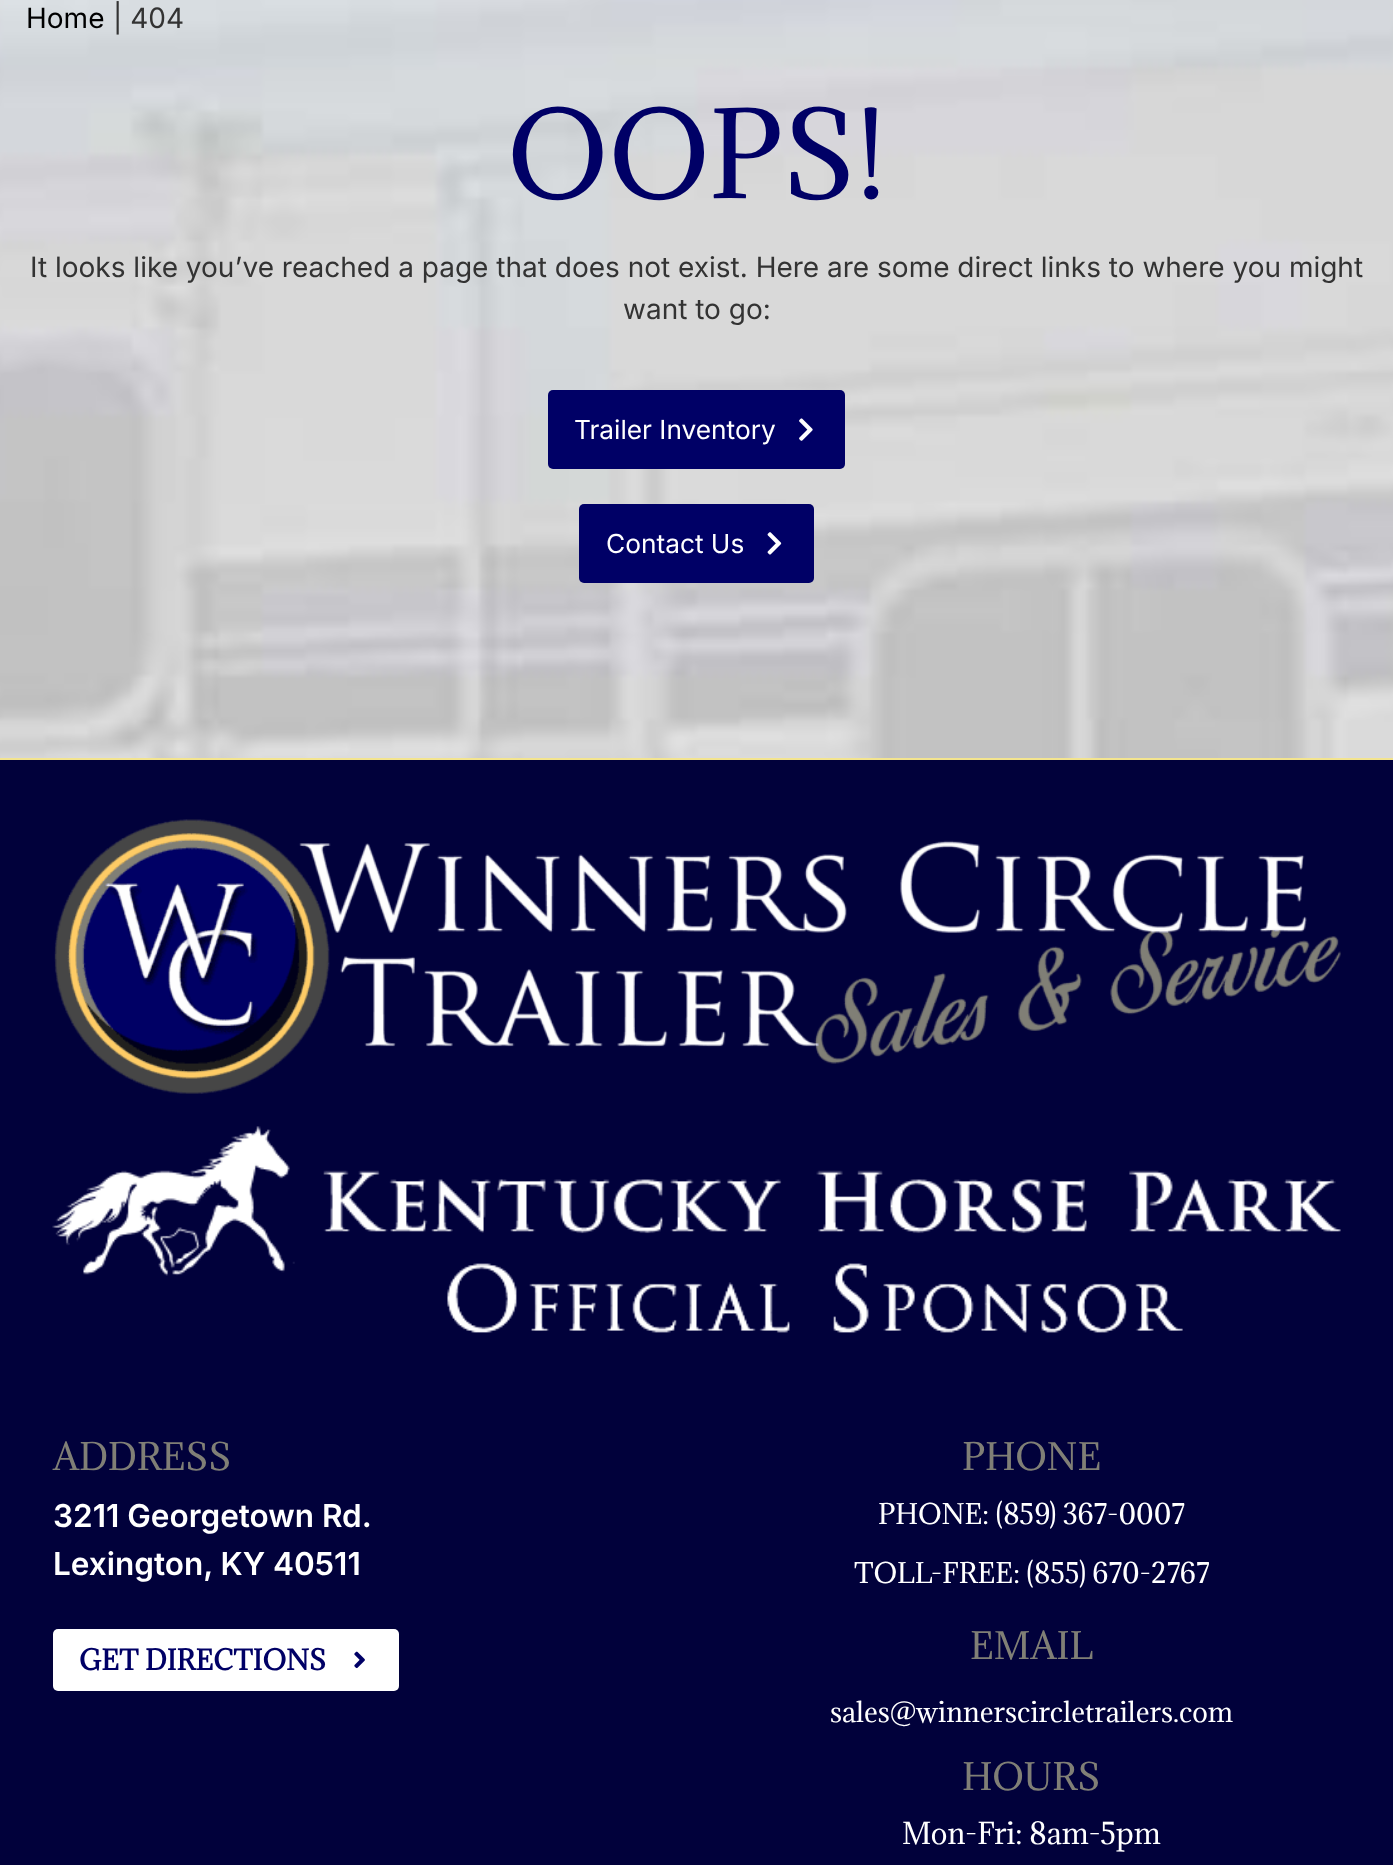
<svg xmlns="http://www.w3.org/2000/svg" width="1393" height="1865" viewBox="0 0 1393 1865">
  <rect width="100%" height="100%" fill="#fff"/>
  <image x="0" y="0" width="1393" height="758" href="img/1.png"/>
  <rect x="548" y="390" width="297" height="79" rx="5" fill="#006"/>
  <image x="799" y="418" width="14" height="23" href="img/2.png"/>
  <rect x="579" y="504" width="235" height="79" rx="5" fill="#006"/>
  <image x="767" y="532" width="15" height="23" href="img/3.png"/>
  <path d="M0 760h1393v1105H0z" fill="#01013b"/>
  <path d="M0 758h1393v2H0z" fill="#f3e48f"/>
  <image x="54" y="819" width="1287" height="275" href="img/4.png"/>
  <image x="52" y="1126" width="1289" height="207" href="img/5.png"/>
  <rect x="53" y="1629" width="346" height="62" rx="5" fill="#fff"/>
  <image x="354" y="1651" width="11" height="18" href="img/6.png"/>
  <text x="26" y="28" font-family="Inter" font-size="28" fill="#000">Home</text>
  <text x="113" y="28" font-family="Inter" font-size="28" fill="#333">| 404</text>
  <text x="507" y="198" font-family="Adamina" font-size="112" fill="#006">OOPS!</text>
  <g font-family="Inter" font-size="28" fill="#333">
    <text x="30" y="277">It looks like you’ve reached a page that does not exist. Here are some direct links to where you might</text>
    <text x="623" y="319">want to go:</text>
  </g>
  <g font-family="Inter" font-size="26.25" fill="#fff">
    <text x="574" y="439">Trailer Inventory</text>
    <text x="606" y="553">Contact Us</text>
  </g>
  <text x="53" y="1470" font-family="Adamina" font-size="35" fill="#807f76">ADDRESS</text>
  <g font-family="Inter" font-size="31.5" font-weight="600" fill="#fff">
    <text x="53" y="1527">3211 Georgetown Rd.</text>
    <text x="53" y="1575">Lexington, KY 40511</text>
  </g>
  <text x="79" y="1670" font-family="Adamina" font-size="26.25" font-weight="bold" fill="#006">GET DIRECTIONS</text>
  <text x="962" y="1470" font-family="Adamina" font-size="35" fill="#807f76">PHONE</text>
  <g font-family="Adamina" font-size="26.25" fill="#fff">
    <text x="878" y="1524">PHONE: (859) 367-0007</text>
    <text x="854" y="1583">TOLL-FREE: (855) 670-2767</text>
  </g>
  <text x="970" y="1659" font-family="Adamina" font-size="35" fill="#807f76">EMAIL</text>
  <text x="830" y="1722" font-family="Adamina" font-size="26.25" fill="#fff">sales@winnerscircletrailers.com</text>
  <text x="962" y="1790" font-family="Adamina" font-size="35" fill="#807f76">HOURS</text>
  <text x="902" y="1844" font-family="Adamina" font-size="28" fill="#fff">Mon-Fri: 8am-5pm</text>
</svg>
